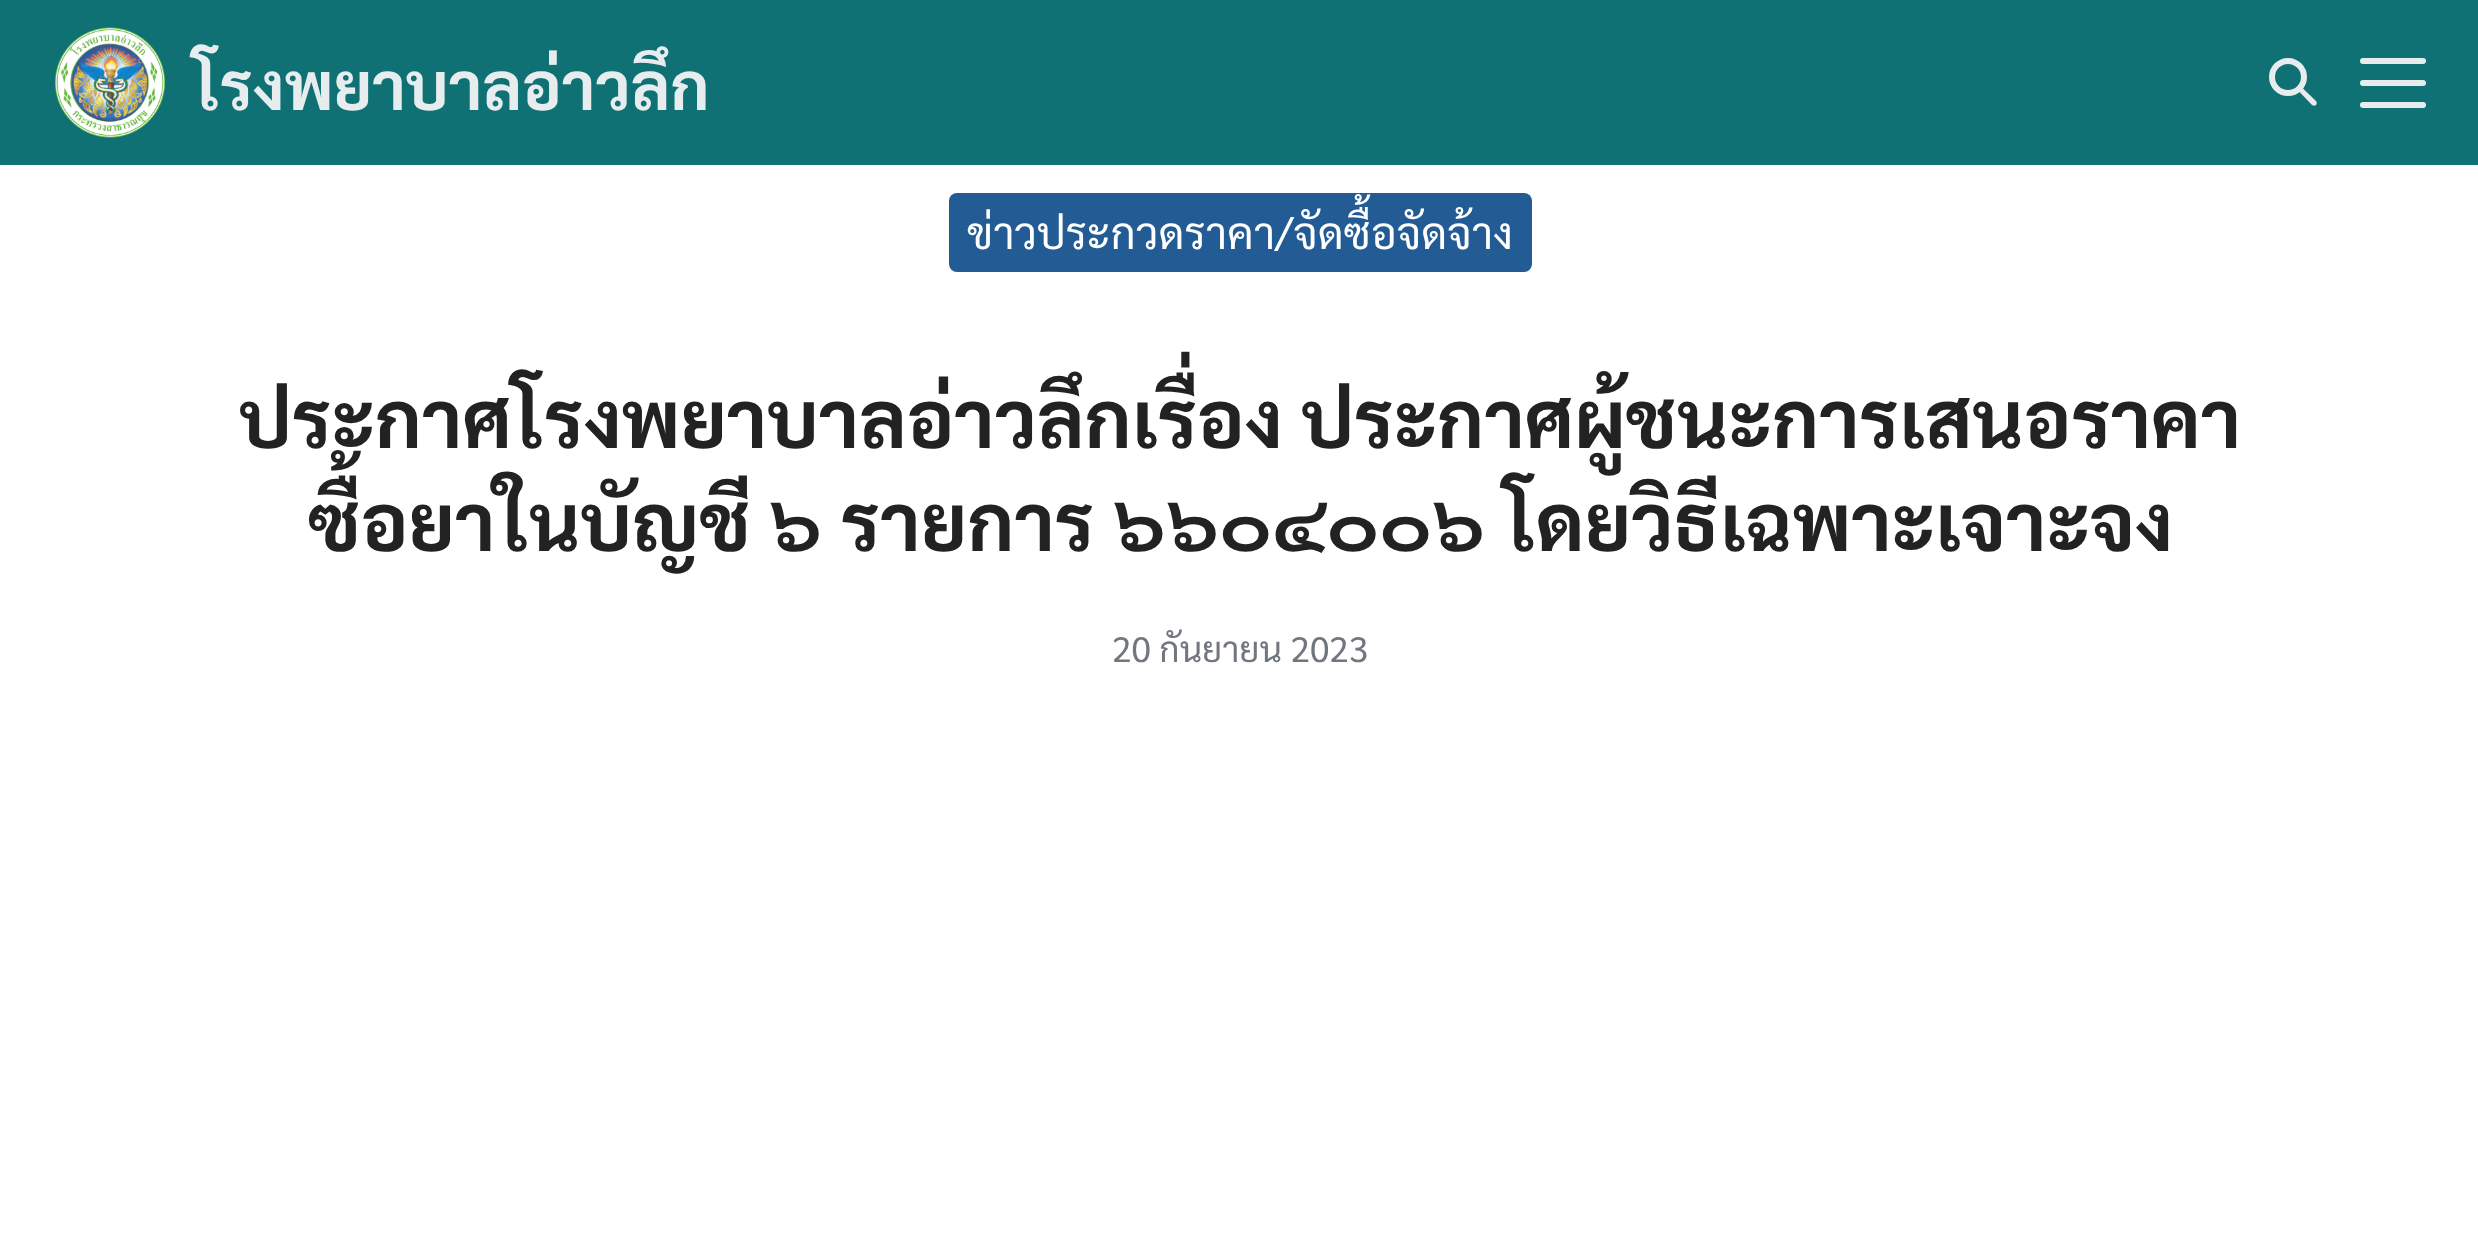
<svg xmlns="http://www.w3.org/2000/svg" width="2478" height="1251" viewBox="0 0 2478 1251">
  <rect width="100%" height="100%" fill="#fff"/>
  <path d="M0 0h2478v165H0z" fill="#0f7173"/>
  <image x="55" y="27" width="110" height="111" href="img/1.png"/>
  <path d="M2300 89C2301 87.5 2302.5 87.5 2303.5 89L2316 101C2317 102.5 2317 104 2316 105C2315 106 2313.5 106 2312 105L2300 92.5C2298.5 91.5 2298.5 90 2300 89Z" fill="#e7ecef"/>
  <circle cx="2288" cy="77" r="16" fill="none" stroke="#e7ecef" stroke-width="6"/>
  <rect x="2360" y="80" width="66" height="6" rx="3" fill="#e7ecef"/>
  <rect x="2360" y="58" width="66" height="6" rx="3" fill="#e7ecef"/>
  <rect x="2360" y="102" width="66" height="6" rx="3" fill="#e7ecef"/>
  <rect x="949" y="193" width="583" height="79" rx="8" fill="#235b95"/>
  <text x="193" y="110" font-family="Sarabun" font-size="66" font-weight="bold" fill="#e7ecef">โรงพยาบาลอ่าวลึก</text>
  <text x="967" y="249" font-family="Sarabun" font-size="44" fill="#fff">ข่าวประกวดราคา/จัดซื้อจัดจ้าง</text>
  <g font-family="Sarabun" font-size="79.2" font-weight="bold" fill="#222">
    <text x="239" y="448">ประกาศโรงพยาบาลอ่าวลึกเรื่อง ประกาศผู้ชนะการเสนอราคา</text>
    <text x="308" y="551">ซื้อยาในบัญชี ๖ รายการ ๖๖๐๔๐๐๖ โดยวิธีเฉพาะเจาะจง</text>
  </g>
  <text x="1112" y="662" font-family="Sarabun" font-size="35.25" fill="#71767f">20 กันยายน 2023</text>
</svg>
